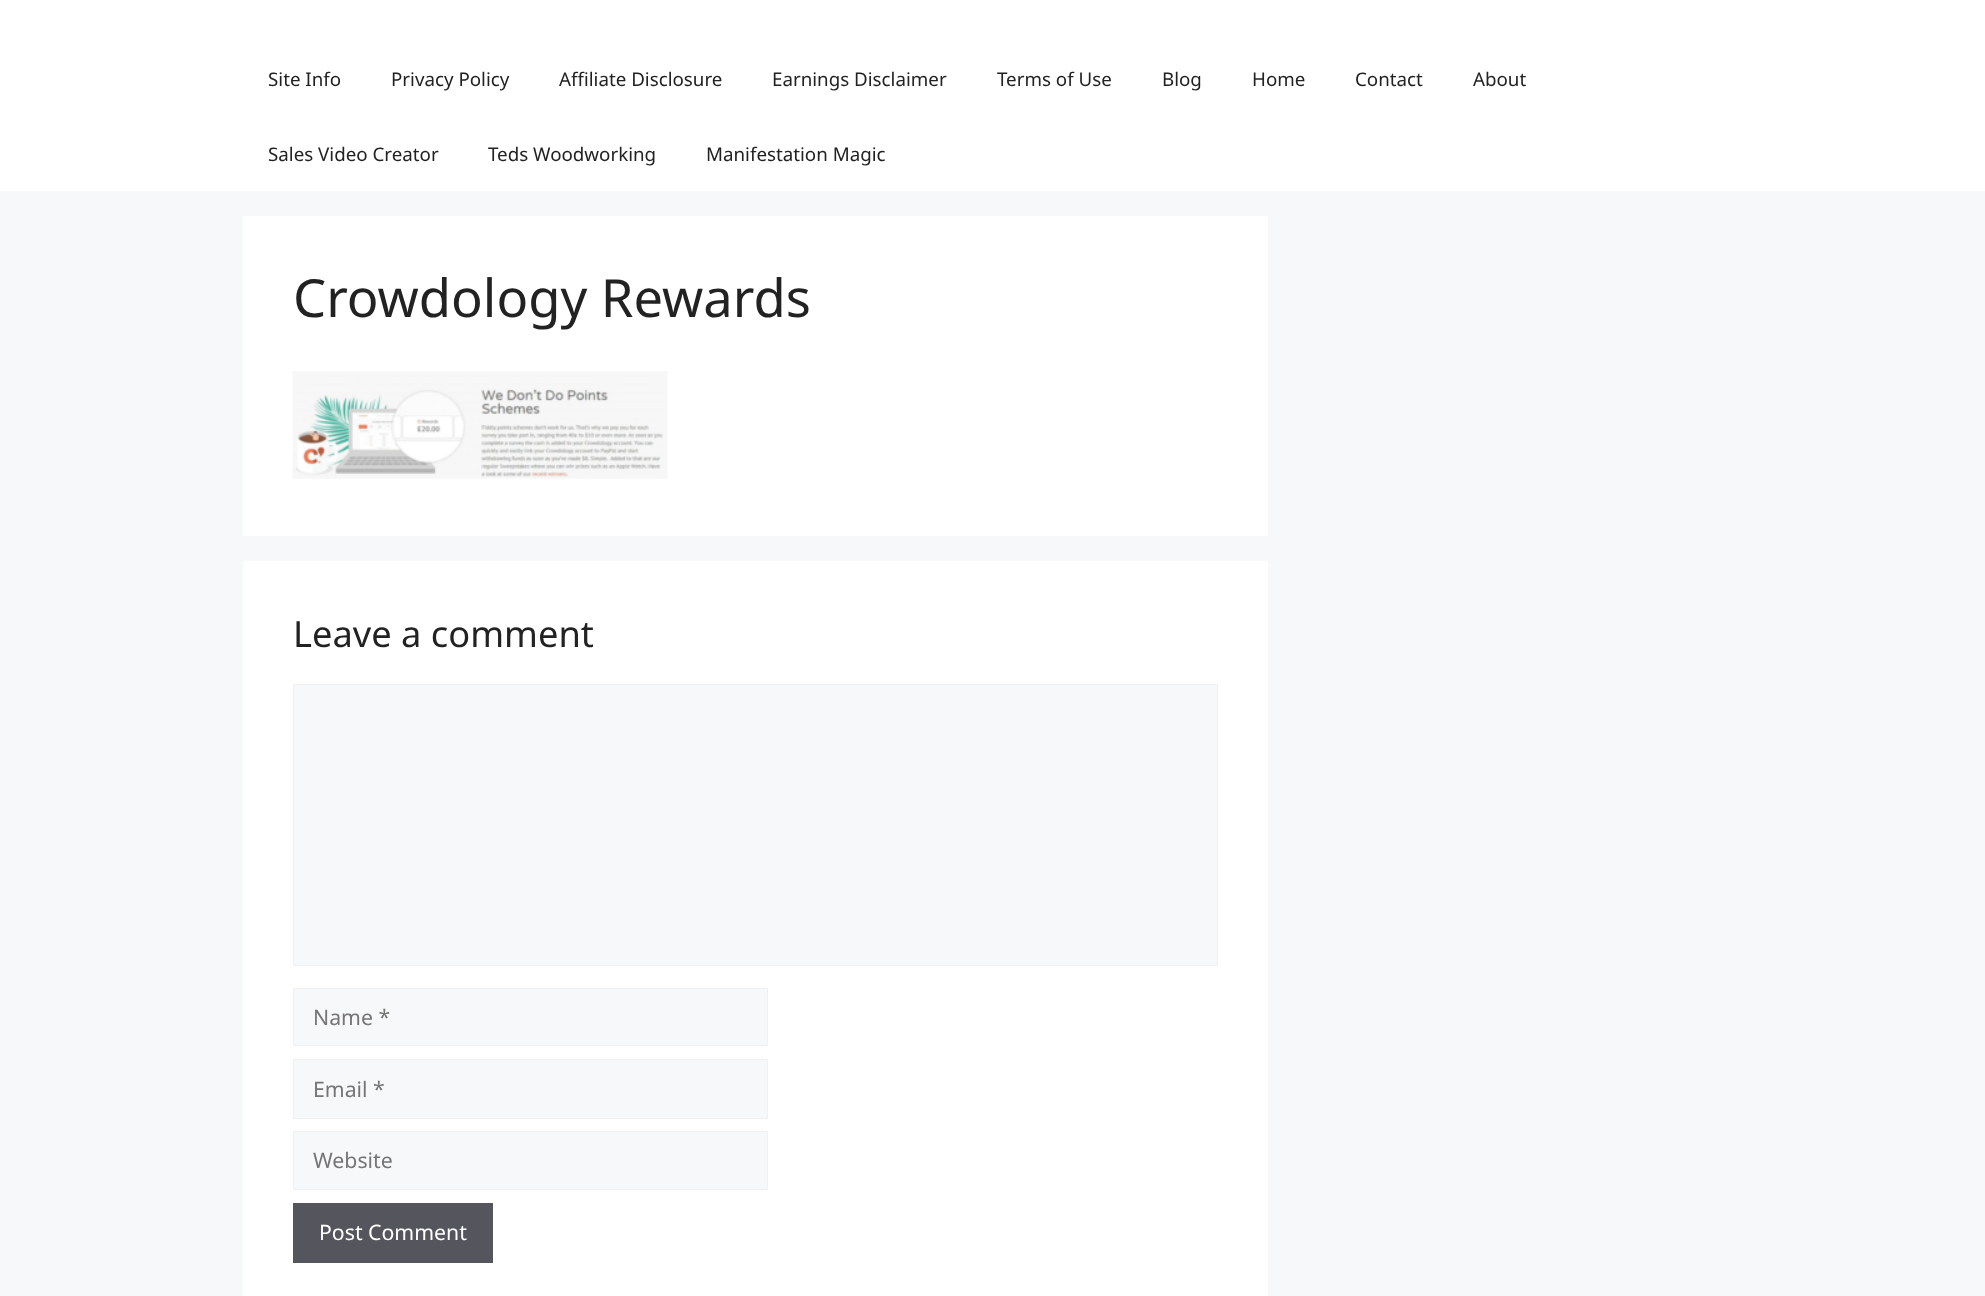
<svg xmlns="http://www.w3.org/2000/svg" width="1985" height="1296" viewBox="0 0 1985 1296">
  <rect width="100%" height="100%" fill="#f7f8f9"/>
  <path d="M0 0h1985v191H0z" fill="#fff"/>
  <path d="M243 216h1025v320H243z" fill="#fff"/>
  <image x="292" y="371" width="376" height="108" href="img/1.png"/>
  <path d="M243 561h1025v735H243z" fill="#fff"/>
  <path d="M293.5 684.5h924v281H293.5z" fill="#f7f8f9" stroke="#f0f0f0"/>
  <path d="M293.5 988.5h474v57H293.5z" fill="#f7f8f9" stroke="#f0f0f0"/>
  <path d="M293.5 1059.5h474v59H293.5z" fill="#f7f8f9" stroke="#f0f0f0"/>
  <path d="M293.5 1131.5h474v58H293.5z" fill="#f7f8f9" stroke="#f0f0f0"/>
  <path d="M293 1203h200v60H293z" fill="#55555e"/>
  <g font-family="Noto Sans" font-size="18.75" fill="#222">
    <text x="268" y="86">Site Info</text>
    <text x="391" y="86">Privacy Policy</text>
    <text x="559" y="86">Affiliate Disclosure</text>
    <text x="772" y="86">Earnings Disclaimer</text>
    <text x="997" y="86">Terms of Use</text>
    <text x="1162" y="86">Blog</text>
    <text x="1252" y="86">Home</text>
    <text x="1355" y="86">Contact</text>
    <text x="1473" y="86">About</text>
    <text x="268" y="161">Sales Video Creator</text>
    <text x="488" y="161">Teds Woodworking</text>
    <text x="706" y="161">Manifestation Magic</text>
  </g>
  <text x="293" y="317" font-family="Noto Sans" font-size="52.5" fill="#222">Crowdology Rewards</text>
  <text x="293" y="647" font-family="Noto Sans" font-size="36.25" fill="#222">Leave a comment</text>
  <g font-family="Noto Sans" font-size="21.25" fill="#757575">
    <text x="313" y="1025">Name *</text>
    <text x="313" y="1097">Email *</text>
    <text x="313" y="1168">Website</text>
  </g>
  <text x="319" y="1240" font-family="Noto Sans" font-size="21.25" fill="#fff">Post Comment</text>
</svg>
